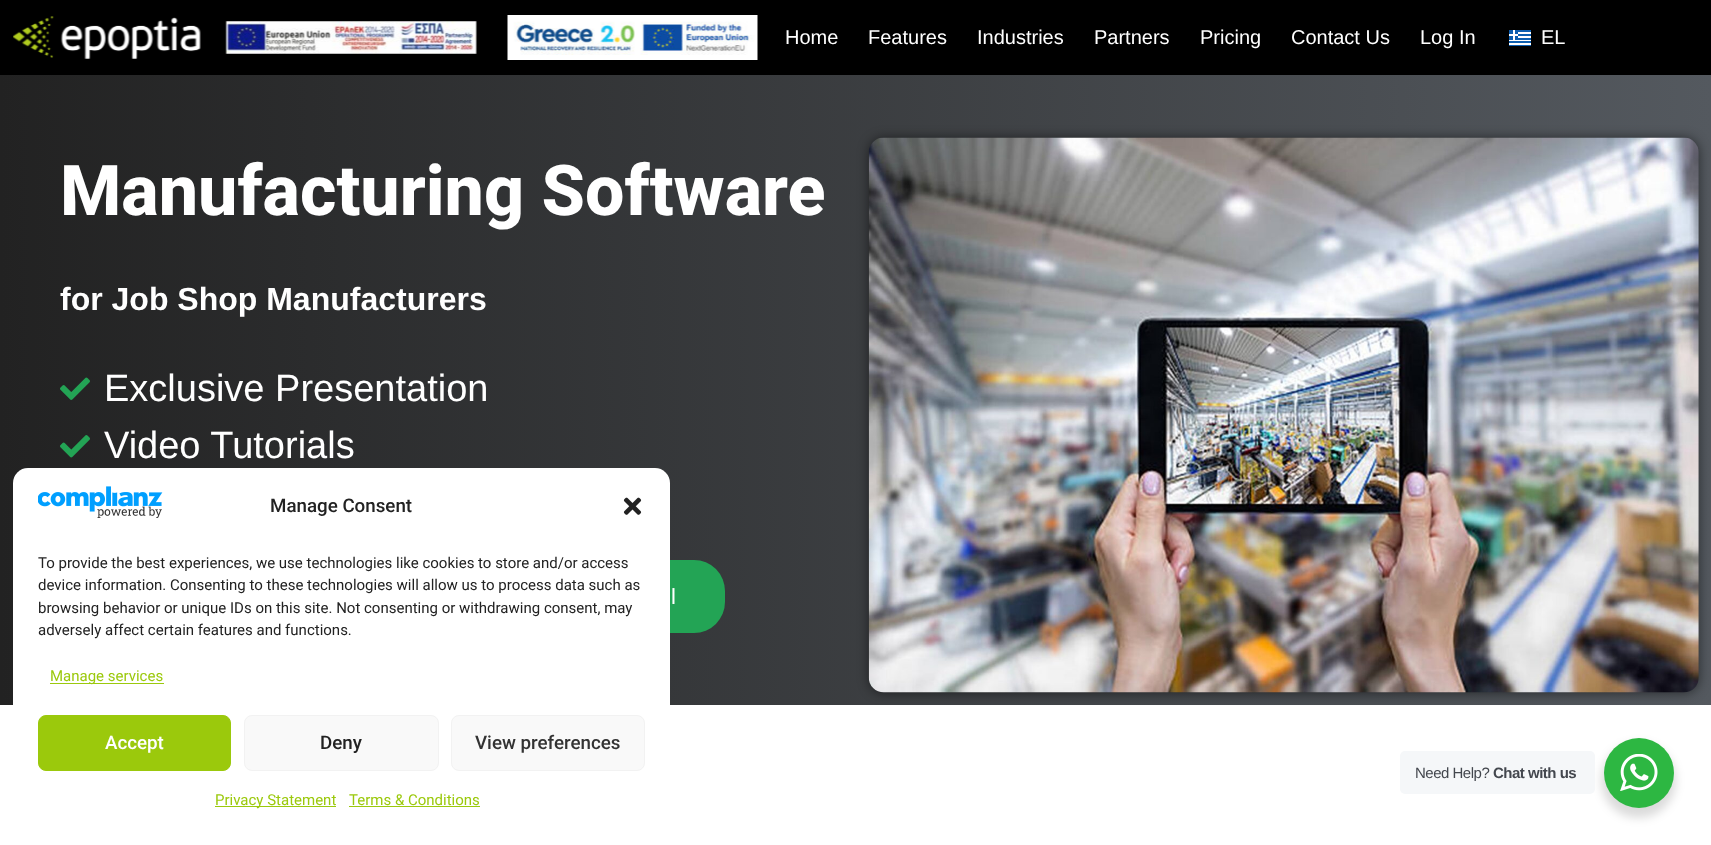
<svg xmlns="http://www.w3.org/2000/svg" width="1711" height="845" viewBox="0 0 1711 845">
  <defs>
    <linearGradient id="g1" gradientUnits="userSpaceOnUse" x1="0" y1="390" x2="1711" y2="390"><stop offset="0" stop-color="#222"/><stop offset="1" stop-color="#54595f"/></linearGradient>
  </defs>
  <rect width="100%" height="100%" fill="#fff"/>
  <path d="M0 0h1711v75H0z" fill="#000"/>
  <image x="13" y="16" width="188" height="43" href="img/1.png"/>
  <image x="225" y="21" width="252" height="33" href="img/2.png"/>
  <image x="507" y="15" width="251" height="45" href="img/3.png"/>
  <image x="1509" y="30" width="22" height="16" href="img/4.png"/>
  <path d="M0 75h1711v630H0z" fill="url(#g1)"/>
  <image x="60" y="377" width="30" height="23" href="img/5.png"/>
  <image x="60" y="435" width="30" height="23" href="img/6.png"/>
  <rect x="450" y="560" width="275" height="73" rx="31" fill="#23a455"/>
  <rect x="869" y="138" width="830" height="555" rx="15" fill="#00000080" filter="blur(6px)"/>
  <image x="868" y="137" width="831" height="556" href="img/7.png"/>
  <rect x="13" y="468" width="657" height="365" rx="15" fill="#fff"/>
  <image x="38" y="486" width="125" height="32" href="img/8.png"/>
  <image x="623" y="497" width="19" height="18" href="img/9.png"/>
  <path d="M50 683h114v1H50z" fill="#9bc90c"/>
  <rect x="38.5" y="715.5" width="192" height="55" rx="7.5" fill="#9bc90c" stroke="#9bc90c"/>
  <rect x="244.5" y="715.5" width="194" height="55" rx="7.5" fill="#f9f9f9" stroke="#f2f2f2"/>
  <rect x="451.5" y="715.5" width="193" height="55" rx="7.5" fill="#f9f9f9" stroke="#f2f2f2"/>
  <path d="M215 806h121v1H215z" fill="#9bc90c"/>
  <path d="M349 806h131v1H349z" fill="#9bc90c"/>
  <rect x="1601" y="743" width="75" height="75" rx="37.5" fill="#00000024" filter="blur(5px)"/>
  <rect x="1400" y="751" width="195" height="43" rx="5" fill="#f5f7f9"/>
  <circle cx="1639" cy="773" r="35" fill="#2db742"/>
  <image x="1620" y="754" width="38" height="37" href="img/10.png"/>
  <g font-family="Liberation Sans" font-size="20" fill="#fff">
    <text x="785" y="44">Home</text>
    <text x="868" y="44">Features</text>
    <text x="977" y="44">Industries</text>
    <text x="1094" y="44">Partners</text>
    <text x="1200" y="44">Pricing</text>
    <text x="1291" y="44">Contact Us</text>
    <text x="1420" y="44">Log In</text>
    <text x="1541" y="44">EL</text>
  </g>
  <text x="60" y="215" font-family="Roboto" font-size="70" font-weight="800" fill="#fff">Manufacturing Software</text>
  <text x="60" y="310" font-family="Liberation Sans" font-size="32" font-weight="bold" fill="#fff">for Job Shop Manufacturers</text>
  <g font-family="Liberation Sans" font-size="38" fill="#fff">
    <text x="104" y="401">Exclusive Presentation</text>
    <text x="104" y="458">Video Tutorials</text>
  </g>
  <text x="671" y="604" font-family="Liberation Sans" font-size="22" fill="#fff">l</text>
  <text x="270" y="512" font-family="Roboto" font-size="18.75" font-weight="500" fill="#222">Manage Consent</text>
  <g font-family="Roboto" font-size="15" fill="#222">
    <text x="38" y="568">To provide the best experiences, we use technologies like cookies to store and/or access</text>
    <text x="38" y="590">device information. Consenting to these technologies will allow us to process data such as</text>
    <text x="38" y="613">browsing behavior or unique IDs on this site. Not consenting or withdrawing consent, may</text>
    <text x="38" y="635">adversely affect certain features and functions.</text>
  </g>
  <text x="50" y="681" font-family="Roboto" font-size="15" fill="#9bc90c">Manage services</text>
  <text x="105" y="749" font-family="Roboto" font-size="18.75" font-weight="500" fill="#fff">Accept</text>
  <text x="320" y="749" font-family="Roboto" font-size="18.75" font-weight="500" fill="#222">Deny</text>
  <text x="475" y="749" font-family="Roboto" font-size="18.75" font-weight="500" fill="#333">View preferences</text>
  <g font-family="Roboto" font-size="15" fill="#9bc90c">
    <text x="215" y="805">Privacy Statement</text>
    <text x="349" y="805">Terms &amp; Conditions</text>
  </g>
  <text x="1415" y="778" font-family="Liberation Sans" font-size="15" letter-spacing="-0.5" fill="#43474e">Need Help?</text>
  <text x="1493" y="778" font-family="Liberation Sans" font-size="15" font-weight="bold" letter-spacing="-0.5" fill="#43474e">Chat with us</text>
</svg>
